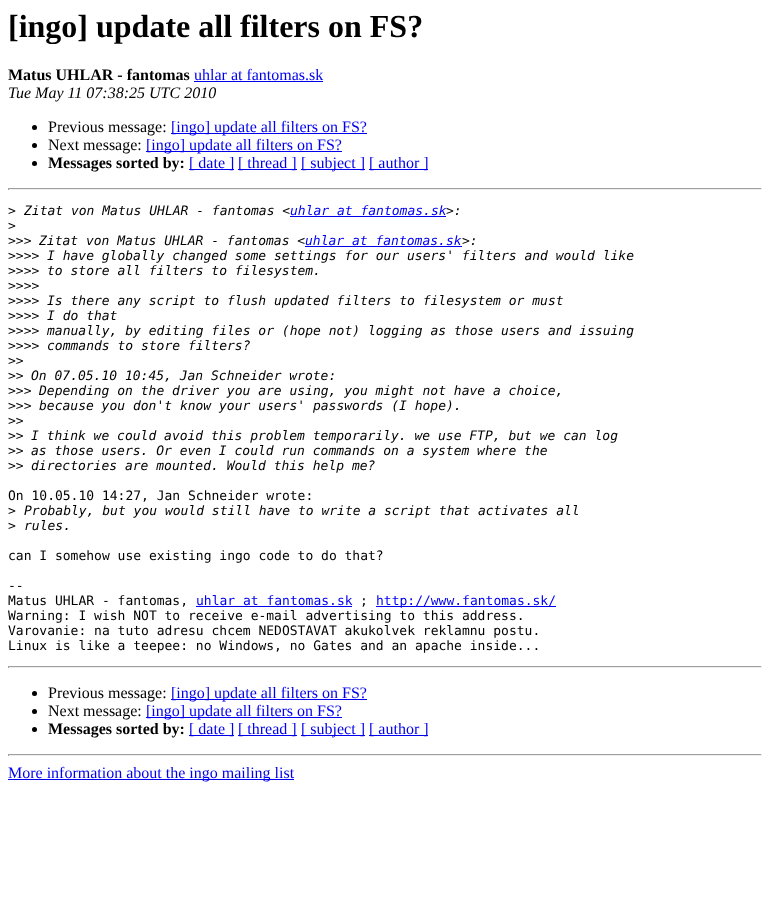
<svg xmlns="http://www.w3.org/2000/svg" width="770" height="907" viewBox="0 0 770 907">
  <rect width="100%" height="100%" fill="#fff"/>
  <path d="M194 81h129v1H194z" fill="#00e"/>
  <circle cx="34.5" cy="127.5" r="2.5" fill="#000"/>
  <path d="M171 133h196v1H171z" fill="#00e"/>
  <circle cx="34.5" cy="145.5" r="2.5" fill="#000"/>
  <path d="M146 151h196v1H146z" fill="#00e"/>
  <circle cx="34.5" cy="163.5" r="2.5" fill="#000"/>
  <path d="M189 169h45v1H189z" fill="#00e"/>
  <path d="M238 169h59v1H238z" fill="#00e"/>
  <path d="M301 169h64v1H301z" fill="#00e"/>
  <path d="M369 169h59v1H369z" fill="#00e"/>
  <path d="M8 188h754v1H8z" fill="#9f9f9f"/>
  <path d="M761 188h1v2H761z" fill="#eee"/>
  <path d="M8 189h754v1H8z" fill="#eee"/>
  <path d="M8 188h1v2H8z" fill="#9f9f9f"/>
  <path d="M290 216h156v1H290z" fill="#00e"/>
  <path d="M305 246h157v1H305z" fill="#00e"/>
  <path d="M196 606h156v1H196z" fill="#00e"/>
  <path d="M376 606h180v1H376z" fill="#00e"/>
  <path d="M8 666h754v1H8z" fill="#9f9f9f"/>
  <path d="M761 666h1v2H761z" fill="#eee"/>
  <path d="M8 667h754v1H8z" fill="#eee"/>
  <path d="M8 666h1v2H8z" fill="#9f9f9f"/>
  <circle cx="34.5" cy="693.5" r="2.5" fill="#000"/>
  <path d="M171 699h196v1H171z" fill="#00e"/>
  <circle cx="34.5" cy="711.5" r="2.5" fill="#000"/>
  <path d="M146 717h196v1H146z" fill="#00e"/>
  <circle cx="34.5" cy="729.5" r="2.5" fill="#000"/>
  <path d="M189 735h45v1H189z" fill="#00e"/>
  <path d="M238 735h59v1H238z" fill="#00e"/>
  <path d="M301 735h64v1H301z" fill="#00e"/>
  <path d="M369 735h59v1H369z" fill="#00e"/>
  <path d="M8 754h754v1H8z" fill="#9f9f9f"/>
  <path d="M761 754h1v2H761z" fill="#eee"/>
  <path d="M8 755h754v1H8z" fill="#eee"/>
  <path d="M8 754h1v2H8z" fill="#9f9f9f"/>
  <path d="M8 779h286v1H8z" fill="#00e"/>
  <text x="8" y="37" font-family="Liberation Serif" font-size="32" font-weight="bold" fill="#000">[ingo] update all filters on FS?</text>
  <text x="8" y="80" font-family="Liberation Serif" font-size="16" font-weight="bold" fill="#000">Matus UHLAR - fantomas</text>
  <text x="194" y="80" font-family="Liberation Serif" font-size="16" fill="#00e">uhlar at fantomas.sk</text>
  <text x="8" y="98" font-family="Liberation Serif" font-size="16" font-style="italic" fill="#000">Tue May 11 07:38:25 UTC 2010</text>
  <text x="48" y="132" font-family="Liberation Serif" font-size="16" fill="#000">Previous message:</text>
  <text x="171" y="132" font-family="Liberation Serif" font-size="16" fill="#00e">[ingo] update all filters on FS?</text>
  <text x="48" y="150" font-family="Liberation Serif" font-size="16" fill="#000">Next message:</text>
  <text x="146" y="150" font-family="Liberation Serif" font-size="16" fill="#00e">[ingo] update all filters on FS?</text>
  <text x="48" y="168" font-family="Liberation Serif" font-size="16" font-weight="bold" fill="#000">Messages sorted by:</text>
  <g font-family="Liberation Serif" font-size="16" fill="#00e">
    <text x="189" y="168">[ date ]</text>
    <text x="238" y="168">[ thread ]</text>
    <text x="301" y="168">[ subject ]</text>
    <text x="369" y="168">[ author ]</text>
  </g>
  <text x="8" y="215" font-family="DejaVu Sans Mono" font-size="13" fill="#000">&gt;</text>
  <text x="24" y="215" font-family="DejaVu Sans Mono" font-size="13" font-style="italic" fill="#000">Zitat von Matus UHLAR - fantomas &lt;</text>
  <text x="290" y="215" font-family="DejaVu Sans Mono" font-size="13" font-style="italic" fill="#00e">uhlar at fantomas.sk</text>
  <text x="446" y="215" font-family="DejaVu Sans Mono" font-size="13" font-style="italic" fill="#000">&gt;:</text>
  <g font-family="DejaVu Sans Mono" font-size="13" fill="#000">
    <text x="8" y="230">&gt;</text>
    <text x="8" y="245">&gt;&gt;&gt;</text>
  </g>
  <text x="39" y="245" font-family="DejaVu Sans Mono" font-size="13" font-style="italic" fill="#000">Zitat von Matus UHLAR - fantomas &lt;</text>
  <text x="305" y="245" font-family="DejaVu Sans Mono" font-size="13" font-style="italic" fill="#00e">uhlar at fantomas.sk</text>
  <text x="462" y="245" font-family="DejaVu Sans Mono" font-size="13" font-style="italic" fill="#000">&gt;:</text>
  <text x="8" y="260" font-family="DejaVu Sans Mono" font-size="13" fill="#000">&gt;&gt;&gt;&gt;</text>
  <text x="47" y="260" font-family="DejaVu Sans Mono" font-size="13" font-style="italic" fill="#000">I have globally changed some settings for our users' filters and would like</text>
  <text x="8" y="275" font-family="DejaVu Sans Mono" font-size="13" fill="#000">&gt;&gt;&gt;&gt;</text>
  <text x="47" y="275" font-family="DejaVu Sans Mono" font-size="13" font-style="italic" fill="#000">to store all filters to filesystem.</text>
  <g font-family="DejaVu Sans Mono" font-size="13" fill="#000">
    <text x="8" y="290">&gt;&gt;&gt;&gt;</text>
    <text x="8" y="305">&gt;&gt;&gt;&gt;</text>
  </g>
  <text x="47" y="305" font-family="DejaVu Sans Mono" font-size="13" font-style="italic" fill="#000">Is there any script to flush updated filters to filesystem or must</text>
  <text x="8" y="320" font-family="DejaVu Sans Mono" font-size="13" fill="#000">&gt;&gt;&gt;&gt;</text>
  <text x="47" y="320" font-family="DejaVu Sans Mono" font-size="13" font-style="italic" fill="#000">I do that</text>
  <text x="8" y="335" font-family="DejaVu Sans Mono" font-size="13" fill="#000">&gt;&gt;&gt;&gt;</text>
  <text x="47" y="335" font-family="DejaVu Sans Mono" font-size="13" font-style="italic" fill="#000">manually, by editing files or (hope not) logging as those users and issuing</text>
  <text x="8" y="350" font-family="DejaVu Sans Mono" font-size="13" fill="#000">&gt;&gt;&gt;&gt;</text>
  <text x="47" y="350" font-family="DejaVu Sans Mono" font-size="13" font-style="italic" fill="#000">commands to store filters?</text>
  <g font-family="DejaVu Sans Mono" font-size="13" fill="#000">
    <text x="8" y="365">&gt;&gt;</text>
    <text x="8" y="380">&gt;&gt;</text>
  </g>
  <text x="31" y="380" font-family="DejaVu Sans Mono" font-size="13" font-style="italic" fill="#000">On 07.05.10 10:45, Jan Schneider wrote:</text>
  <text x="8" y="395" font-family="DejaVu Sans Mono" font-size="13" fill="#000">&gt;&gt;&gt;</text>
  <text x="39" y="395" font-family="DejaVu Sans Mono" font-size="13" font-style="italic" fill="#000">Depending on the driver you are using, you might not have a choice,</text>
  <text x="8" y="410" font-family="DejaVu Sans Mono" font-size="13" fill="#000">&gt;&gt;&gt;</text>
  <text x="39" y="410" font-family="DejaVu Sans Mono" font-size="13" font-style="italic" fill="#000">because you don't know your users' passwords (I hope).</text>
  <g font-family="DejaVu Sans Mono" font-size="13" fill="#000">
    <text x="8" y="425">&gt;&gt;</text>
    <text x="8" y="440">&gt;&gt;</text>
  </g>
  <text x="31" y="440" font-family="DejaVu Sans Mono" font-size="13" font-style="italic" fill="#000">I think we could avoid this problem temporarily. we use FTP, but we can log</text>
  <text x="8" y="455" font-family="DejaVu Sans Mono" font-size="13" fill="#000">&gt;&gt;</text>
  <text x="31" y="455" font-family="DejaVu Sans Mono" font-size="13" font-style="italic" fill="#000">as those users. Or even I could run commands on a system where the</text>
  <text x="8" y="470" font-family="DejaVu Sans Mono" font-size="13" fill="#000">&gt;&gt;</text>
  <text x="31" y="470" font-family="DejaVu Sans Mono" font-size="13" font-style="italic" fill="#000">directories are mounted. Would this help me?</text>
  <g font-family="DejaVu Sans Mono" font-size="13" fill="#000">
    <text x="8" y="500">On 10.05.10 14:27, Jan Schneider wrote:</text>
    <text x="8" y="515">&gt;</text>
  </g>
  <text x="24" y="515" font-family="DejaVu Sans Mono" font-size="13" font-style="italic" fill="#000">Probably, but you would still have to write a script that activates all</text>
  <text x="8" y="530" font-family="DejaVu Sans Mono" font-size="13" fill="#000">&gt;</text>
  <text x="24" y="530" font-family="DejaVu Sans Mono" font-size="13" font-style="italic" fill="#000">rules.</text>
  <g font-family="DejaVu Sans Mono" font-size="13" fill="#000">
    <text x="8" y="560">can I somehow use existing ingo code to do that?</text>
    <text x="8" y="590">--</text>
    <text x="8" y="605">Matus UHLAR - fantomas,</text>
  </g>
  <text x="196" y="605" font-family="DejaVu Sans Mono" font-size="13" fill="#00e">uhlar at fantomas.sk</text>
  <text x="360" y="605" font-family="DejaVu Sans Mono" font-size="13" fill="#000">;</text>
  <text x="376" y="605" font-family="DejaVu Sans Mono" font-size="13" fill="#00e">http://www.fantomas.sk/</text>
  <g font-family="DejaVu Sans Mono" font-size="13" fill="#000">
    <text x="8" y="620">Warning: I wish NOT to receive e-mail advertising to this address.</text>
    <text x="8" y="635">Varovanie: na tuto adresu chcem NEDOSTAVAT akukolvek reklamnu postu.</text>
    <text x="8" y="650">Linux is like a teepee: no Windows, no Gates and an apache inside...</text>
  </g>
  <text x="48" y="698" font-family="Liberation Serif" font-size="16" fill="#000">Previous message:</text>
  <text x="171" y="698" font-family="Liberation Serif" font-size="16" fill="#00e">[ingo] update all filters on FS?</text>
  <text x="48" y="716" font-family="Liberation Serif" font-size="16" fill="#000">Next message:</text>
  <text x="146" y="716" font-family="Liberation Serif" font-size="16" fill="#00e">[ingo] update all filters on FS?</text>
  <text x="48" y="734" font-family="Liberation Serif" font-size="16" font-weight="bold" fill="#000">Messages sorted by:</text>
  <g font-family="Liberation Serif" font-size="16" fill="#00e">
    <text x="189" y="734">[ date ]</text>
    <text x="238" y="734">[ thread ]</text>
    <text x="301" y="734">[ subject ]</text>
    <text x="369" y="734">[ author ]</text>
    <text x="8" y="778">More information about the ingo mailing list</text>
  </g>
</svg>
